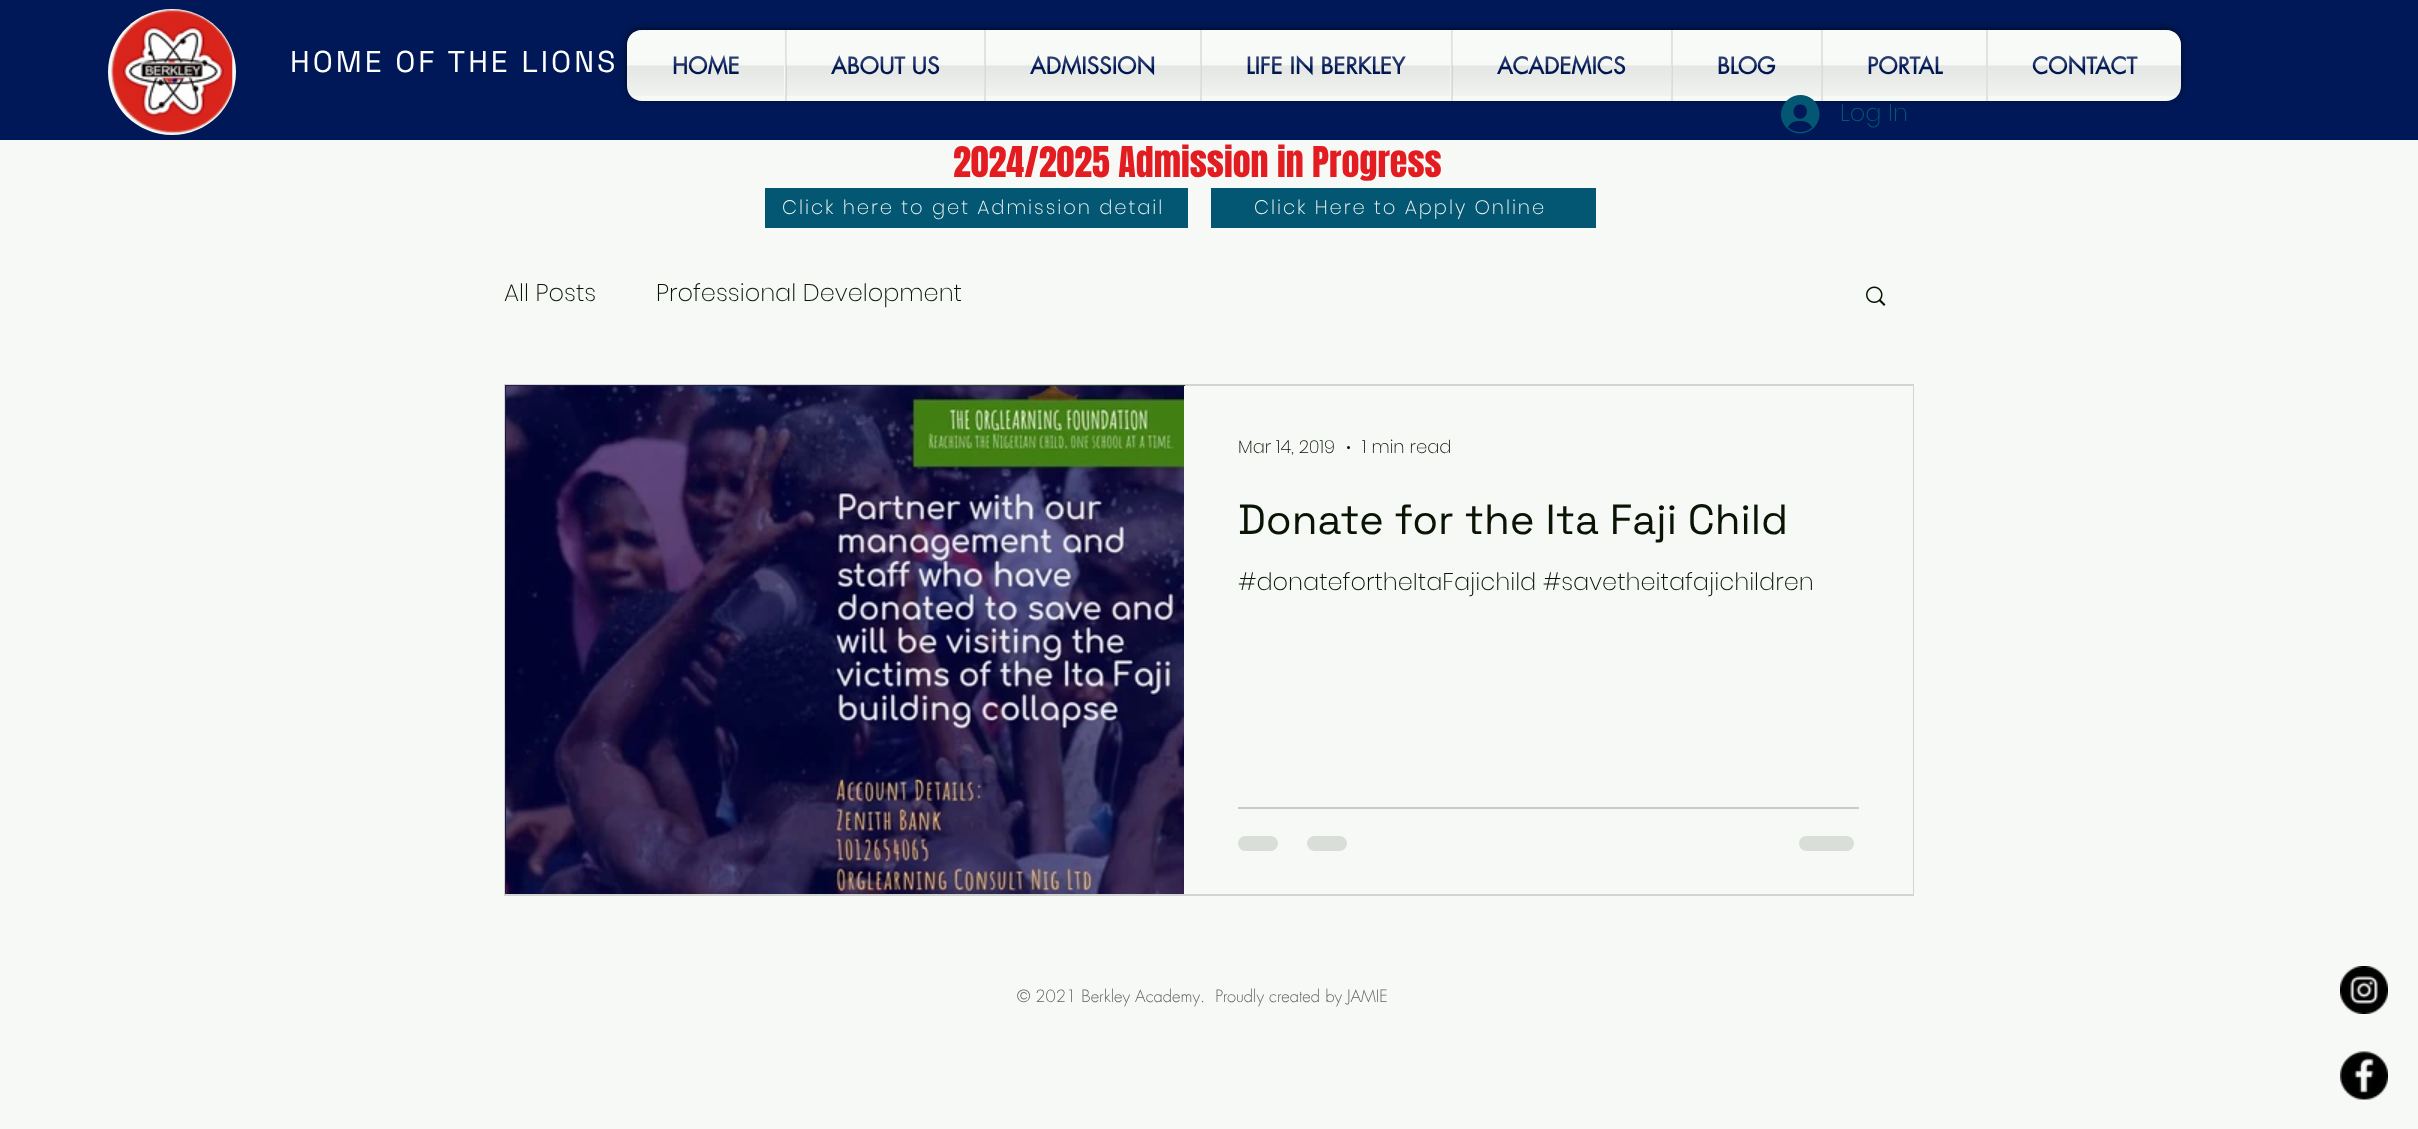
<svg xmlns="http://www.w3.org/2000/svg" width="2418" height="1129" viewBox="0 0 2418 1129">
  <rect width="100%" height="100%" fill="#f6f9f5"/>
  <path d="M0 0h2418v140H0z" fill="#001857"/>
  <path d="M236 72C236 107 207 135 172 135C137 135 108 107 108 72C108 37 137 9 172 9C207 9 236 37 236 72Z" fill="#f6f9f5"/>
  <image x="111" y="9" width="122" height="125" href="img/1.png"/>
  <rect x="627" y="29" width="1554" height="70" rx="15" fill="#00000099" filter="blur(3px)"/>
  <image x="627" y="30" width="1554" height="58" href="img/2.png"/>
  <path d="M642 30H785V101H642C633.5 101 627 94.5 627 86V45C627 36.5 633.5 30 642 30Z" fill="#f6f9f5"/>
  <path d="M787 30h197v71H787z" fill="#f6f9f5"/>
  <path d="M785 30h2v71H785z" fill="#dfe2df"/>
  <path d="M986 30h214v71H986z" fill="#f6f9f5"/>
  <path d="M984 30h2v71H984z" fill="#dfe2df"/>
  <path d="M1202 30h249v71H1202z" fill="#f6f9f5"/>
  <path d="M1200 30h2v71H1200z" fill="#dfe2df"/>
  <path d="M1453 30h218v71H1453z" fill="#f6f9f5"/>
  <path d="M1451 30h2v71H1451z" fill="#dfe2df"/>
  <path d="M1673 30h148v71H1673z" fill="#f6f9f5"/>
  <path d="M1671 30h2v71H1671z" fill="#dfe2df"/>
  <path d="M1823 30h163v71H1823z" fill="#f6f9f5"/>
  <path d="M1821 30h2v71H1821z" fill="#dfe2df"/>
  <path d="M1986 30H2166C2174.5 30 2181 36.5 2181 45V86C2181 94.5 2174.5 101 2166 101H1986Z" fill="#f6f9f5"/>
  <path d="M1986 30h2v71H1986z" fill="#dfe2df"/>
  <path d="M765 188h423v40H765z" fill="#035772"/>
  <path d="M1211 188h385v40H1211z" fill="#035772"/>
  <image x="1866" y="286" width="20" height="20" href="img/12.png"/>
  <path d="M505 385h1408v510H505z" fill="none" stroke="#d1d4d0" stroke-width="2"/>
  <image x="505" y="385" width="680" height="509" href="img/13.png"/>
  <image x="506" y="386" width="678" height="508" href="img/14.png"/>
  <path d="M1184 386h729v508H1184z" fill="#f6f9f5"/>
  <circle cx="1348.5" cy="447.5" r="1.5" fill="#091405"/>
  <path d="M1238 807h621v2H1238z" fill="#c7cbc5"/>
  <rect x="1238" y="836" width="40" height="15" rx="7.5" fill="#daded8"/>
  <rect x="1307" y="836" width="40" height="15" rx="7.5" fill="#daded8"/>
  <rect x="1799" y="836" width="55" height="15" rx="7.5" fill="#daded8"/>
  <image x="2340" y="966" width="48" height="48" href="img/15.png"/>
  <image x="2340" y="1051" width="48" height="49" href="img/16.png"/>
  <text x="290" y="72" font-family="Space Grotesk" font-size="30" letter-spacing="3" fill="#fff">HOME OF THE LIONS</text>
  <text x="672" y="74" font-family="futura" font-size="22.5" font-weight="bold" fill="#001857">HOME</text>
  <image x="627" y="30" width="157" height="66" href="img/3.png"/>
  <text x="831" y="74" font-family="futura" font-size="22.5" font-weight="bold" fill="#001857">ABOUT US</text>
  <image x="786" y="30" width="198" height="66" href="img/4.png"/>
  <text x="1030" y="74" font-family="futura" font-size="22.5" font-weight="bold" fill="#001857">ADMISSION</text>
  <image x="985" y="30" width="215" height="66" href="img/5.png"/>
  <text x="1246" y="74" font-family="futura" font-size="22.5" font-weight="bold" fill="#001857">LIFE IN BERKLEY</text>
  <image x="1201" y="30" width="250" height="66" href="img/6.png"/>
  <text x="1497" y="74" font-family="futura" font-size="22.5" font-weight="bold" fill="#001857">ACADEMICS</text>
  <image x="1452" y="30" width="219" height="66" href="img/7.png"/>
  <text x="1717" y="74" font-family="futura" font-size="22.5" font-weight="bold" fill="#001857">BLOG</text>
  <image x="1672" y="30" width="149" height="66" href="img/8.png"/>
  <text x="1867" y="74" font-family="futura" font-size="22.5" font-weight="bold" fill="#001857">PORTAL</text>
  <image x="1822" y="30" width="164" height="66" href="img/9.png"/>
  <text x="2032" y="74" font-family="futura" font-size="22.5" font-weight="bold" fill="#001857">CONTACT</text>
  <image x="1988" y="30" width="193" height="66" href="img/10.png"/>
  <image x="1781" y="95" width="39" height="39" href="img/11.png"/>
  <text x="1840" y="121" font-family="Poppins" font-size="24" font-weight="200" fill="#035772">Log In</text>
  <text x="953" y="177" font-family="Anton" font-size="36" fill="#e21c21">2024/2025 Admission in Progress</text>
  <g font-family="Poppins" font-size="19.5" font-weight="200" letter-spacing="1.95" fill="#f6f9f5">
    <text x="782" y="214">Click here to get Admission detail</text>
    <text x="1254" y="214">Click Here to Apply Online</text>
  </g>
  <g font-family="Poppins" font-size="24" font-weight="200" fill="#091405">
    <text x="504" y="301">All Posts</text>
    <text x="656" y="301">Professional Development</text>
  </g>
  <g font-family="Poppins" font-size="18" font-weight="200" fill="#091405">
    <text x="1238" y="453">Mar 14, 2019</text>
    <text x="1362" y="453">1 min read</text>
  </g>
  <text x="1238" y="534" font-family="Space Grotesk" font-size="42" fill="#091405">Donate for the Ita Faji Child</text>
  <text x="1238" y="590" font-family="Poppins" font-size="24" font-weight="200" fill="#091405">#donatefortheItaFajichild #savetheitafajichildren</text>
  <text x="1017" y="1002" font-family="futura" font-size="16.5" font-weight="300" fill="#626462" xml:space="preserve">© 2021 Berkley Academy.  Proudly created by JAMIE</text>
</svg>
